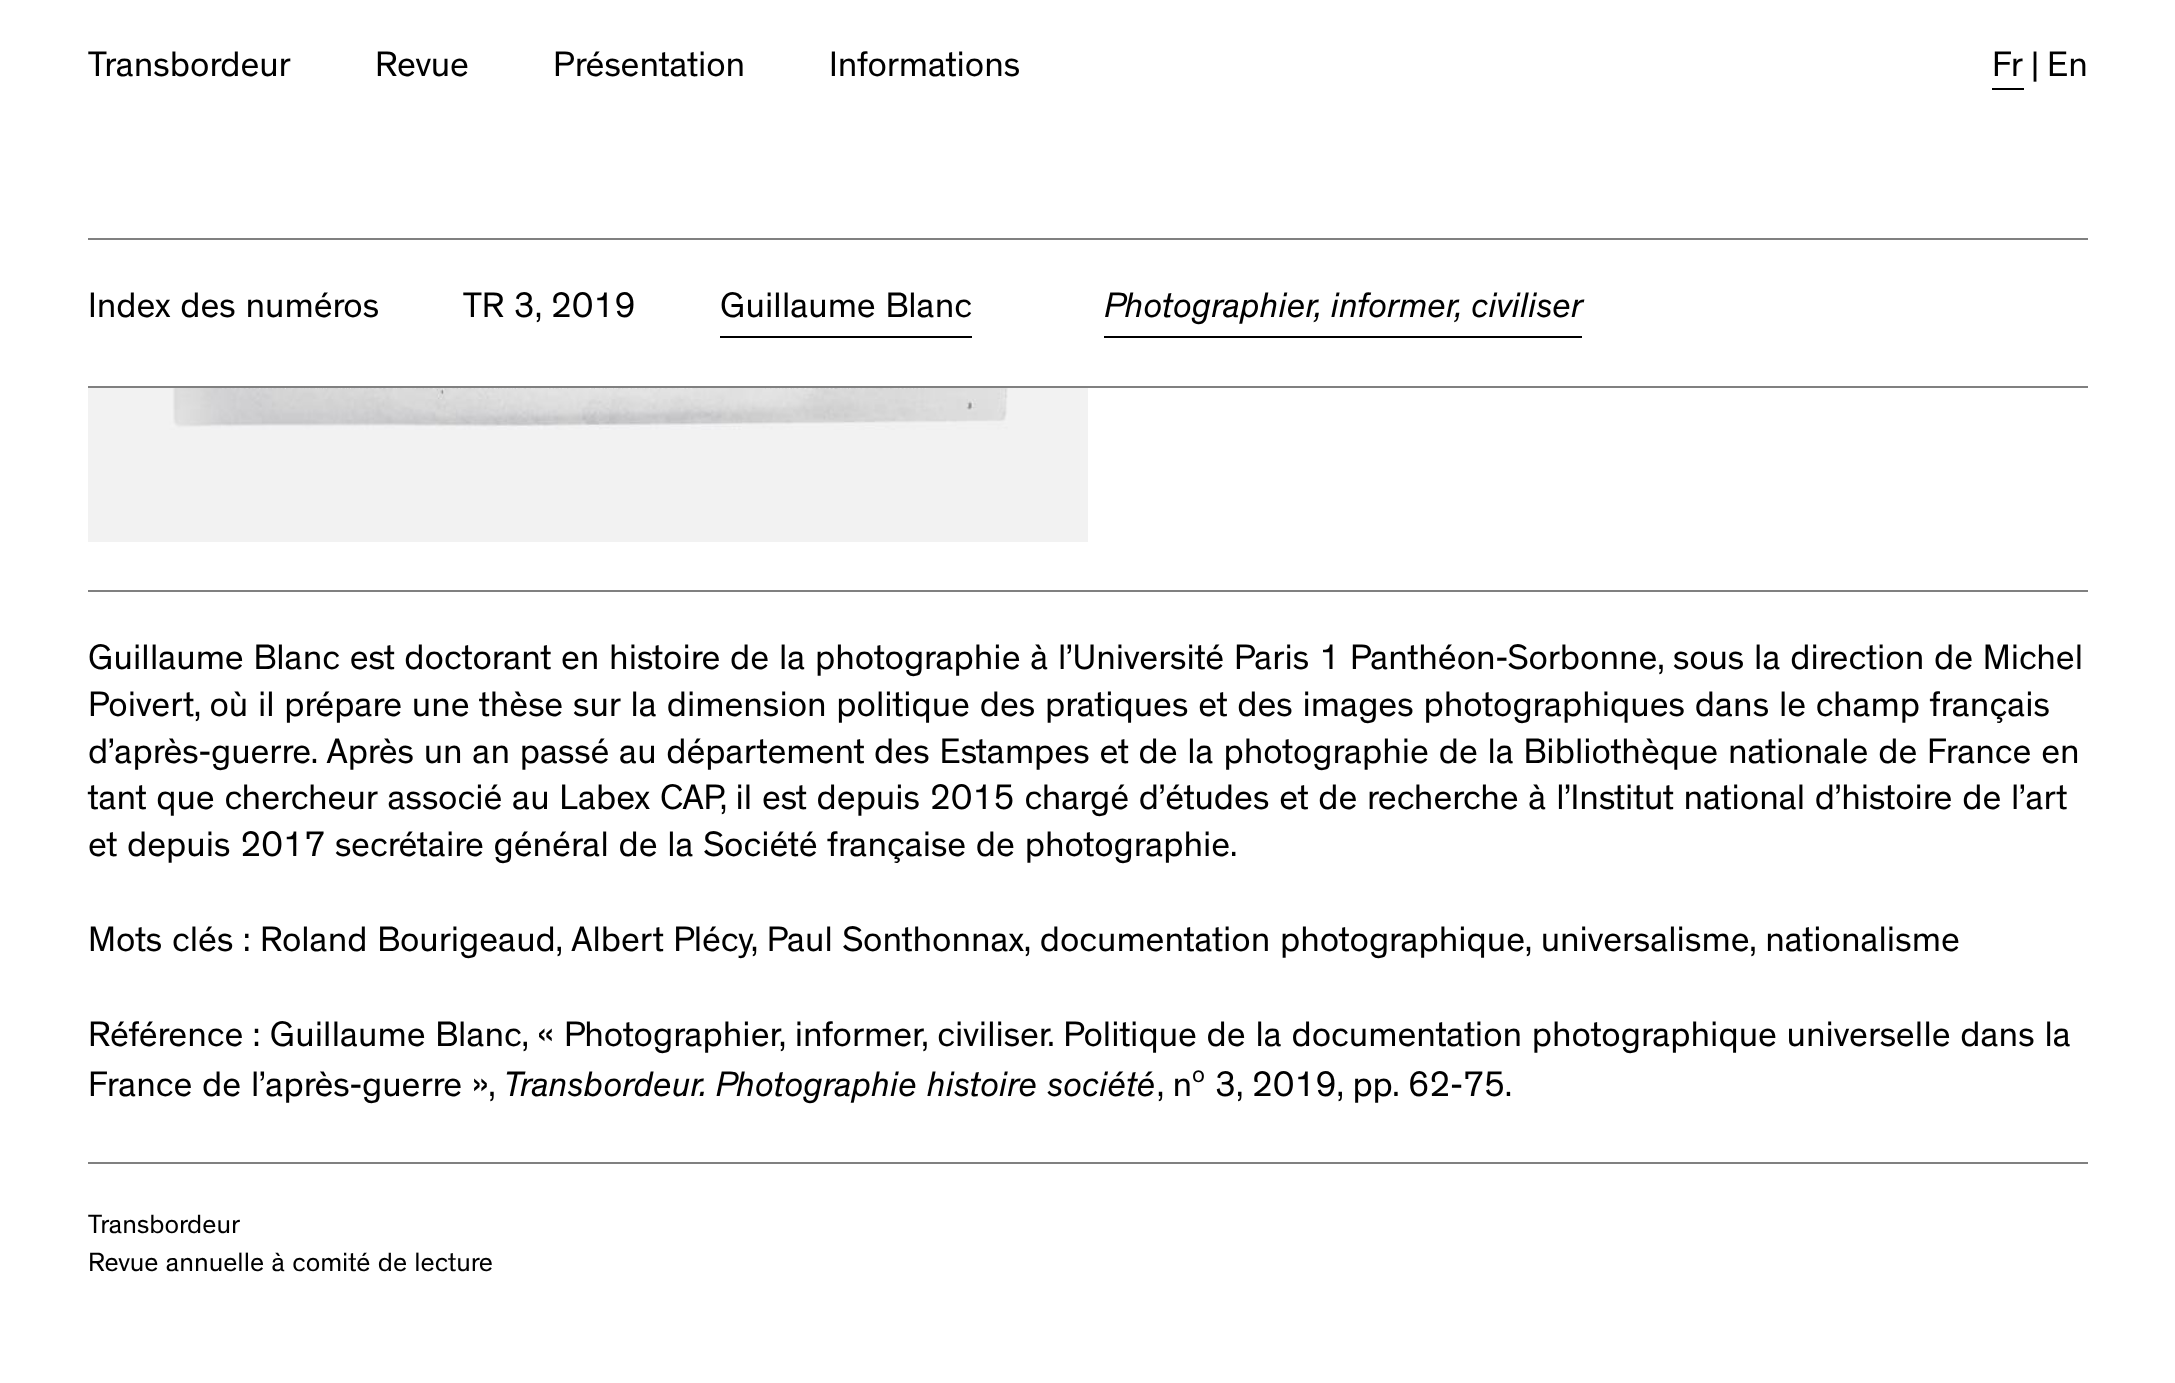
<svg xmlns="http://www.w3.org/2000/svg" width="2175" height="1383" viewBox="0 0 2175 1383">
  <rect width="100%" height="100%" fill="#fff"/>
  <path d="M88 238h2000v2H88z" fill="#808080"/>
  <path d="M1992 88h32v2H1992z" fill="#000"/>
  <path d="M88 386h2000v2H88z" fill="#808080"/>
  <path d="M720 336h252v2H720z" fill="#000"/>
  <path d="M1104 336h478v2H1104z" fill="#000"/>
  <path d="M88 590h2000v2H88z" fill="#808080"/>
  <image x="88" y="388" width="1000" height="154" href="img/1.png"/>
  <path d="M88 1162h2000v2H88z" fill="#808080"/>
  <g font-family="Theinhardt" font-size="36" fill="#000">
    <text x="88" y="76">Transbordeur</text>
    <text x="375" y="76">Revue</text>
    <text x="553" y="76">Présentation</text>
    <text x="829" y="76">Informations</text>
    <text x="1992" y="76">Fr</text>
    <text x="2031" y="76">|</text>
    <text x="2047" y="76">En</text>
    <text x="88" y="317">Index des numéros</text>
    <text x="463" y="317">TR 3, 2019</text>
    <text x="720" y="317">Guillaume Blanc</text>
  </g>
  <text x="1104" y="317" font-family="Theinhardt" font-size="36" font-style="italic" fill="#000">Photographier, informer, civiliser</text>
  <g font-family="Theinhardt" font-size="36" fill="#000">
    <text x="88" y="669">Guillaume Blanc est doctorant en histoire de la photographie à l’Université Paris 1 Panthéon-Sorbonne, sous la direction de Michel</text>
    <text x="88" y="716">Poivert, où il prépare une thèse sur la dimension politique des pratiques et des images photographiques dans le champ français</text>
    <text x="88" y="763">d’après-guerre. Après un an passé au département des Estampes et de la photographie de la Bibliothèque nationale de France en</text>
    <text x="88" y="809">tant que chercheur associé au Labex CAP, il est depuis 2015 chargé d’études et de recherche à l’Institut national d’histoire de l’art</text>
    <text x="88" y="856">et depuis 2017 secrétaire général de la Société française de photographie.</text>
    <text x="88" y="951">Mots clés : Roland Bourigeaud, Albert Plécy, Paul Sonthonnax, documentation photographique, universalisme, nationalisme</text>
    <text x="88" y="1046">Référence : Guillaume Blanc, « Photographier, informer, civiliser. Politique de la documentation photographique universelle dans la</text>
    <text x="88" y="1096">France de l’après-guerre »,</text>
  </g>
  <text x="504" y="1096" font-family="Theinhardt" font-size="36" font-style="italic" fill="#000">Transbordeur. Photographie histoire société</text>
  <text x="1157" y="1096" font-family="Theinhardt" font-size="36" fill="#000">, n</text>
  <text x="1192" y="1082" font-family="Theinhardt" font-size="24" fill="#000">o</text>
  <text x="1215" y="1096" font-family="Theinhardt" font-size="36" fill="#000">3, 2019, pp. 62-75.</text>
  <g font-family="Theinhardt" font-size="27" fill="#000">
    <text x="88" y="1233">Transbordeur</text>
    <text x="88" y="1271">Revue annuelle à comité de lecture</text>
  </g>
</svg>
